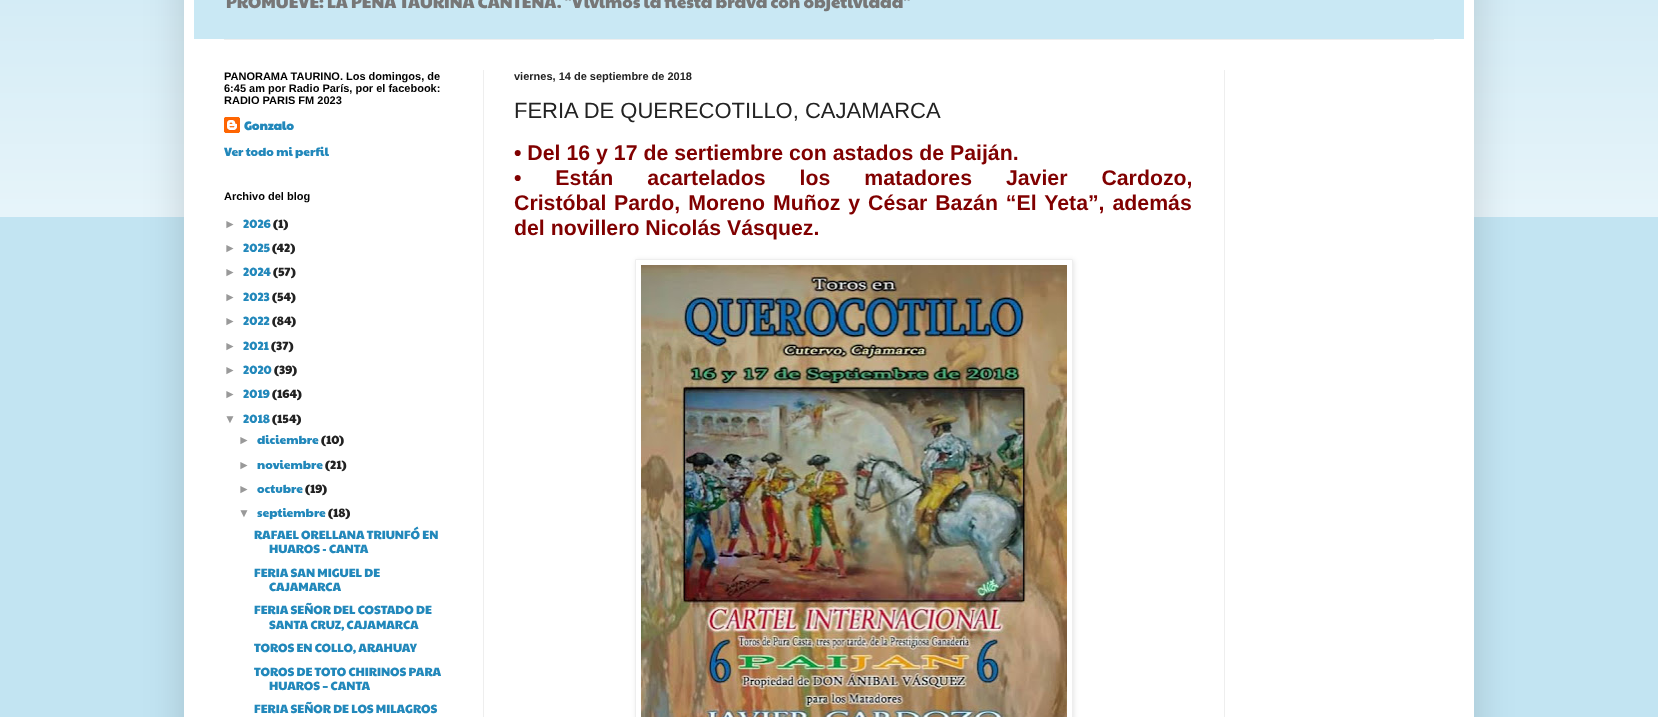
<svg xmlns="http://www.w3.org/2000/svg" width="1658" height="717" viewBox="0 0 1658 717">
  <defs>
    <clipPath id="clip1"><path d="M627 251H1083V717H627ZM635 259H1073V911H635Z" clip-rule="evenodd"/></clipPath>
  </defs>
  <rect width="100%" height="100%" fill="#c2e4f2"/>
  <image x="0" y="0" width="1658" height="217" href="img/1.png"/>
  <path d="M184 -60h1290v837H184z" fill="#00000026" filter="blur(20px)"/>
  <path d="M184 0h1290v717H184z" fill="#fff"/>
  <path d="M194 0h1270v39H194z" fill="#c9e8f4"/>
  <path d="M224 39h1210v1H224z" fill="#eee"/>
  <path d="M483 70h1v647H483z" fill="#eee"/>
  <path d="M1224 70h1v647H1224z" fill="#eee"/>
  <image x="224" y="117" width="16" height="16" href="img/2.png"/>
  <g clip-path="url(#clip1)">
    <path d="M636 260h438v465H636z" fill="#0000001a" filter="blur(2.5px)"/>
  </g>
  <path d="M635.5 259.5h437v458H635.5z" fill="none" stroke="#eee"/>
  <image x="641" y="265" width="426" height="452" href="img/3.png"/>
  <text x="226" y="8" font-family="Paytone One" font-size="16.8" fill="#777">PROMUEVE: LA PEÑA TAURINA CANTEÑA. "Vivimos la fiesta brava con objetividad"</text>
  <g font-family="Liberation Sans" font-size="11" font-weight="bold" fill="#000">
    <text x="224" y="80">PANORAMA TAURINO. Los domingos, de</text>
    <text x="224" y="92">6:45 am por Radio París, por el facebook:</text>
    <text x="224" y="104">RADIO PARIS FM 2023</text>
  </g>
  <text x="244" y="130" font-family="Paytone One" font-size="12" font-weight="bold" fill="#28b">Gonzalo</text>
  <text x="224" y="156" font-family="Paytone One" font-size="12" fill="#28b">Ver todo mi perfil</text>
  <text x="224" y="200" font-family="Liberation Sans" font-size="11" font-weight="bold" fill="#000">Archivo del blog</text>
  <text x="224" y="228" font-family="Liberation Sans" font-size="12" fill="#999">►</text>
  <text x="243" y="228" font-family="Paytone One" font-size="12" fill="#28b">2026</text>
  <text x="273" y="228" font-family="Paytone One" font-size="12" fill="#222">(1)</text>
  <text x="224" y="252" font-family="Liberation Sans" font-size="12" fill="#999">►</text>
  <text x="243" y="252" font-family="Paytone One" font-size="12" fill="#28b">2025</text>
  <text x="272" y="252" font-family="Paytone One" font-size="12" fill="#222">(42)</text>
  <text x="224" y="276" font-family="Liberation Sans" font-size="12" fill="#999">►</text>
  <text x="243" y="276" font-family="Paytone One" font-size="12" fill="#28b">2024</text>
  <text x="273" y="276" font-family="Paytone One" font-size="12" fill="#222">(57)</text>
  <text x="224" y="301" font-family="Liberation Sans" font-size="12" fill="#999">►</text>
  <text x="243" y="301" font-family="Paytone One" font-size="12" fill="#28b">2023</text>
  <text x="272" y="301" font-family="Paytone One" font-size="12" fill="#222">(54)</text>
  <text x="224" y="325" font-family="Liberation Sans" font-size="12" fill="#999">►</text>
  <text x="243" y="325" font-family="Paytone One" font-size="12" fill="#28b">2022</text>
  <text x="272" y="325" font-family="Paytone One" font-size="12" fill="#222">(84)</text>
  <text x="224" y="350" font-family="Liberation Sans" font-size="12" fill="#999">►</text>
  <text x="243" y="350" font-family="Paytone One" font-size="12" fill="#28b">2021</text>
  <text x="271" y="350" font-family="Paytone One" font-size="12" fill="#222">(37)</text>
  <text x="224" y="374" font-family="Liberation Sans" font-size="12" fill="#999">►</text>
  <text x="243" y="374" font-family="Paytone One" font-size="12" fill="#28b">2020</text>
  <text x="274" y="374" font-family="Paytone One" font-size="12" fill="#222">(39)</text>
  <text x="224" y="398" font-family="Liberation Sans" font-size="12" fill="#999">►</text>
  <text x="243" y="398" font-family="Paytone One" font-size="12" fill="#28b">2019</text>
  <text x="272" y="398" font-family="Paytone One" font-size="12" fill="#222">(164)</text>
  <text x="224" y="423" font-family="Liberation Sans" font-size="12" fill="#999">▼</text>
  <text x="243" y="423" font-family="Paytone One" font-size="12" fill="#28b">2018</text>
  <text x="272" y="423" font-family="Paytone One" font-size="12" fill="#222">(154)</text>
  <text x="238" y="444" font-family="Liberation Sans" font-size="12" fill="#999">►</text>
  <text x="257" y="444" font-family="Paytone One" font-size="12" fill="#28b">diciembre</text>
  <text x="321" y="444" font-family="Paytone One" font-size="12" fill="#222">(10)</text>
  <text x="238" y="469" font-family="Liberation Sans" font-size="12" fill="#999">►</text>
  <text x="257" y="469" font-family="Paytone One" font-size="12" fill="#28b">noviembre</text>
  <text x="325" y="469" font-family="Paytone One" font-size="12" fill="#222">(21)</text>
  <text x="238" y="493" font-family="Liberation Sans" font-size="12" fill="#999">►</text>
  <text x="257" y="493" font-family="Paytone One" font-size="12" fill="#28b">octubre</text>
  <text x="305" y="493" font-family="Paytone One" font-size="12" fill="#222">(19)</text>
  <text x="238" y="517" font-family="Liberation Sans" font-size="12" fill="#999">▼</text>
  <text x="257" y="517" font-family="Paytone One" font-size="12" fill="#28b">septiembre</text>
  <text x="328" y="517" font-family="Paytone One" font-size="12" fill="#222">(18)</text>
  <g font-family="Paytone One" font-size="12" fill="#28b">
    <text x="254" y="539">RAFAEL ORELLANA TRIUNFÓ EN</text>
    <text x="269" y="553">HUAROS - CANTA</text>
    <text x="254" y="577">FERIA SAN MIGUEL DE</text>
    <text x="269" y="591">CAJAMARCA</text>
    <text x="254" y="614">FERIA SEÑOR DEL COSTADO DE</text>
    <text x="269" y="629">SANTA CRUZ, CAJAMARCA</text>
    <text x="254" y="652">TOROS EN COLLO, ARAHUAY</text>
    <text x="254" y="676">TOROS DE TOTO CHIRINOS PARA</text>
    <text x="269" y="690">HUAROS – CANTA</text>
    <text x="254" y="713">FERIA SEÑOR DE LOS MILAGROS</text>
  </g>
  <text x="514" y="80" font-family="Liberation Sans" font-size="11" font-weight="bold" fill="#222">viernes, 14 de septiembre de 2018</text>
  <text x="514" y="118" font-family="Liberation Sans" font-size="22" fill="#222">FERIA DE QUERECOTILLO, CAJAMARCA</text>
  <g font-family="Liberation Sans" font-size="21.3" font-weight="bold" fill="#800000">
    <text x="514" y="160">• Del 16 y 17 de sertiembre con astados de Paiján.</text>
    <text x="514" y="185" word-spacing="28">• Están acartelados los matadores Javier Cardozo,</text>
    <text x="514" y="210">Cristóbal</text>
    <text x="614" y="210" word-spacing="2">Pardo, Moreno Muñoz y César Bazán “El Yeta”, además</text>
    <text x="514" y="235">del novillero Nicolás Vásquez.</text>
  </g>
</svg>
